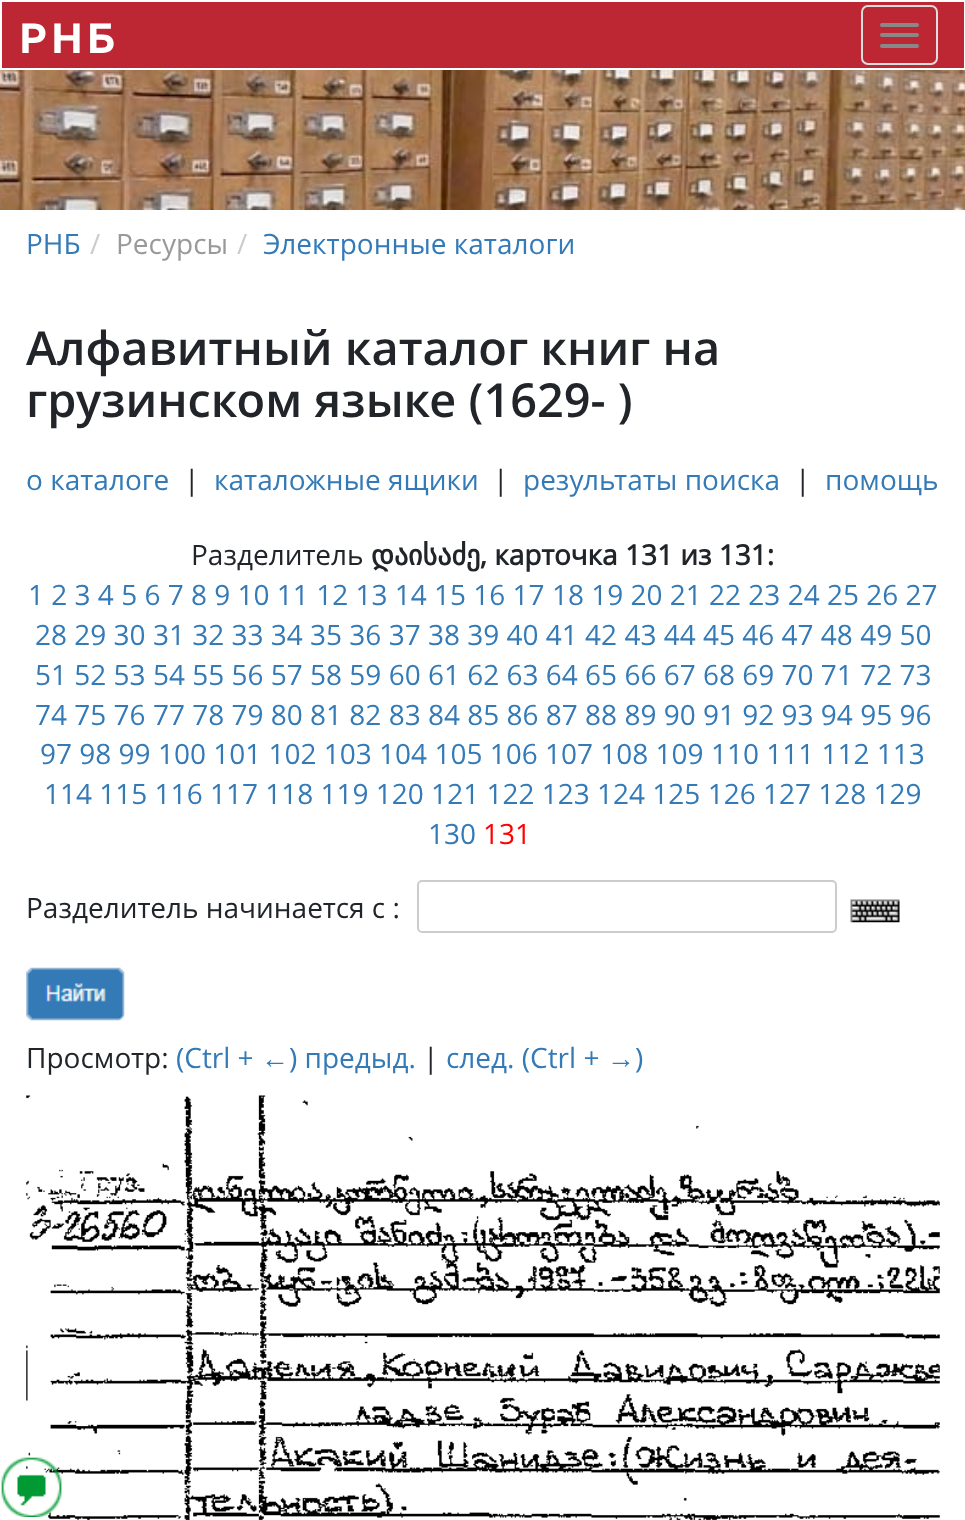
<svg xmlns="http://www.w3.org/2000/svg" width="965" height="1520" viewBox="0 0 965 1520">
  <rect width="100%" height="100%" fill="#fff"/>
  <image x="0" y="70" width="965" height="140" href="img/1.png"/>
  <path d="M2 2h962v66H2z" fill="#bd2734"/>
  <rect x="862" y="6" width="75" height="58" rx="6" fill="none" stroke="#ddd" stroke-width="2"/>
  <rect x="880" y="23" width="39" height="4" rx="2" fill="#888"/>
  <rect x="880" y="33" width="39" height="4" rx="2" fill="#888"/>
  <rect x="880" y="44" width="39" height="4" rx="2" fill="#888"/>
  <rect x="418" y="881" width="418" height="51" rx="4" fill="none" stroke="#ccc" stroke-width="2"/>
  <image x="850" y="899" width="50" height="24" href="img/2.png"/>
  <image x="26" y="967" width="99" height="54" href="img/3.png"/>
  <image x="26" y="1095" width="914" height="425" href="img/4.png"/>
  <image x="1" y="1457" width="61" height="60" href="img/5.png"/>
  <text x="19" y="53" font-family="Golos" font-size="42" font-weight="600" letter-spacing="4" fill="#fff">РНБ</text>
  <text x="26" y="254" font-family="Open Sans" font-size="28" fill="#337ab7">РНБ</text>
  <text x="90" y="254" font-family="Open Sans" font-size="28" fill="#ccc">/</text>
  <text x="116" y="254" font-family="Open Sans" font-size="28" fill="#999">Ресурсы</text>
  <text x="237" y="254" font-family="Open Sans" font-size="28" fill="#ccc">/</text>
  <text x="263" y="254" font-family="Open Sans" font-size="28" fill="#337ab7">Электронные каталоги</text>
  <g font-family="Open Sans" font-size="46.9" font-weight="600" fill="#212529">
    <text x="26" y="365">Алфавитный каталог книг на</text>
    <text x="26" y="417">грузинском языке (1629- )</text>
  </g>
  <text x="26" y="490" font-family="Open Sans" font-size="28" fill="#337ab7">о каталоге</text>
  <text x="184" y="490" font-family="Open Sans" font-size="28" fill="#212529">|</text>
  <text x="214" y="490" font-family="Open Sans" font-size="28" fill="#337ab7">каталожные ящики</text>
  <text x="493" y="490" font-family="Open Sans" font-size="28" fill="#212529">|</text>
  <text x="523" y="490" font-family="Open Sans" font-size="28" fill="#337ab7">результаты поиска</text>
  <text x="795" y="490" font-family="Open Sans" font-size="28" fill="#212529">|</text>
  <text x="825" y="490" font-family="Open Sans" font-size="28" fill="#337ab7">помощь</text>
  <text x="191" y="565" font-family="Open Sans" font-size="28" fill="#212529">Разделитель</text>
  <text x="371" y="565" font-family="DejaVu Sans" font-size="28" font-weight="bold" fill="#212529">დაისაძე</text>
  <text x="480" y="565" font-family="Open Sans" font-size="28" font-weight="bold" fill="#212529">, карточка 131 из 131:</text>
  <g font-family="Open Sans" font-size="28" fill="#337ab7">
    <text x="28" y="605">1 2 3 4 5 6 7 8 9 10 11 12 13 14 15 16 17 18 19 20 21 22 23 24 25 26 27</text>
    <text x="35" y="645">28 29 30 31 32 33 34 35 36 37 38 39 40 41 42 43 44 45 46 47 48 49 50</text>
    <text x="35" y="685">51 52 53 54 55 56 57 58 59 60 61 62 63 64 65 66 67 68 69 70 71 72 73</text>
    <text x="35" y="725">74 75 76 77 78 79 80 81 82 83 84 85 86 87 88 89 90 91 92 93 94 95 96</text>
    <text x="40" y="764">97 98 99 100 101 102 103 104 105 106 107 108 109 110 111 112 113</text>
    <text x="44" y="804">114 115 116 117 118 119 120 121 122 123 124 125 126 127 128 129</text>
    <text x="428" y="844">130</text>
  </g>
  <text x="483" y="844" font-family="Open Sans" font-size="28" fill="#f00">131</text>
  <g font-family="Open Sans" font-size="28" fill="#212529">
    <text x="26" y="918">Разделитель начинается с :</text>
    <text x="26" y="1068">Просмотр:</text>
  </g>
  <text x="176" y="1068" font-family="Open Sans" font-size="28" fill="#337ab7">(Ctrl +</text>
  <text x="261" y="1068" font-family="Liberation Sans" font-size="28" fill="#337ab7">←</text>
  <text x="289" y="1068" font-family="Open Sans" font-size="28" fill="#337ab7">) предыд.</text>
  <text x="423" y="1068" font-family="Open Sans" font-size="28" fill="#212529">|</text>
  <text x="446" y="1068" font-family="Open Sans" font-size="28" fill="#337ab7">след. (Ctrl +</text>
  <text x="607" y="1068" font-family="Liberation Sans" font-size="28" fill="#337ab7">→</text>
  <text x="635" y="1068" font-family="Open Sans" font-size="28" fill="#337ab7">)</text>
</svg>
